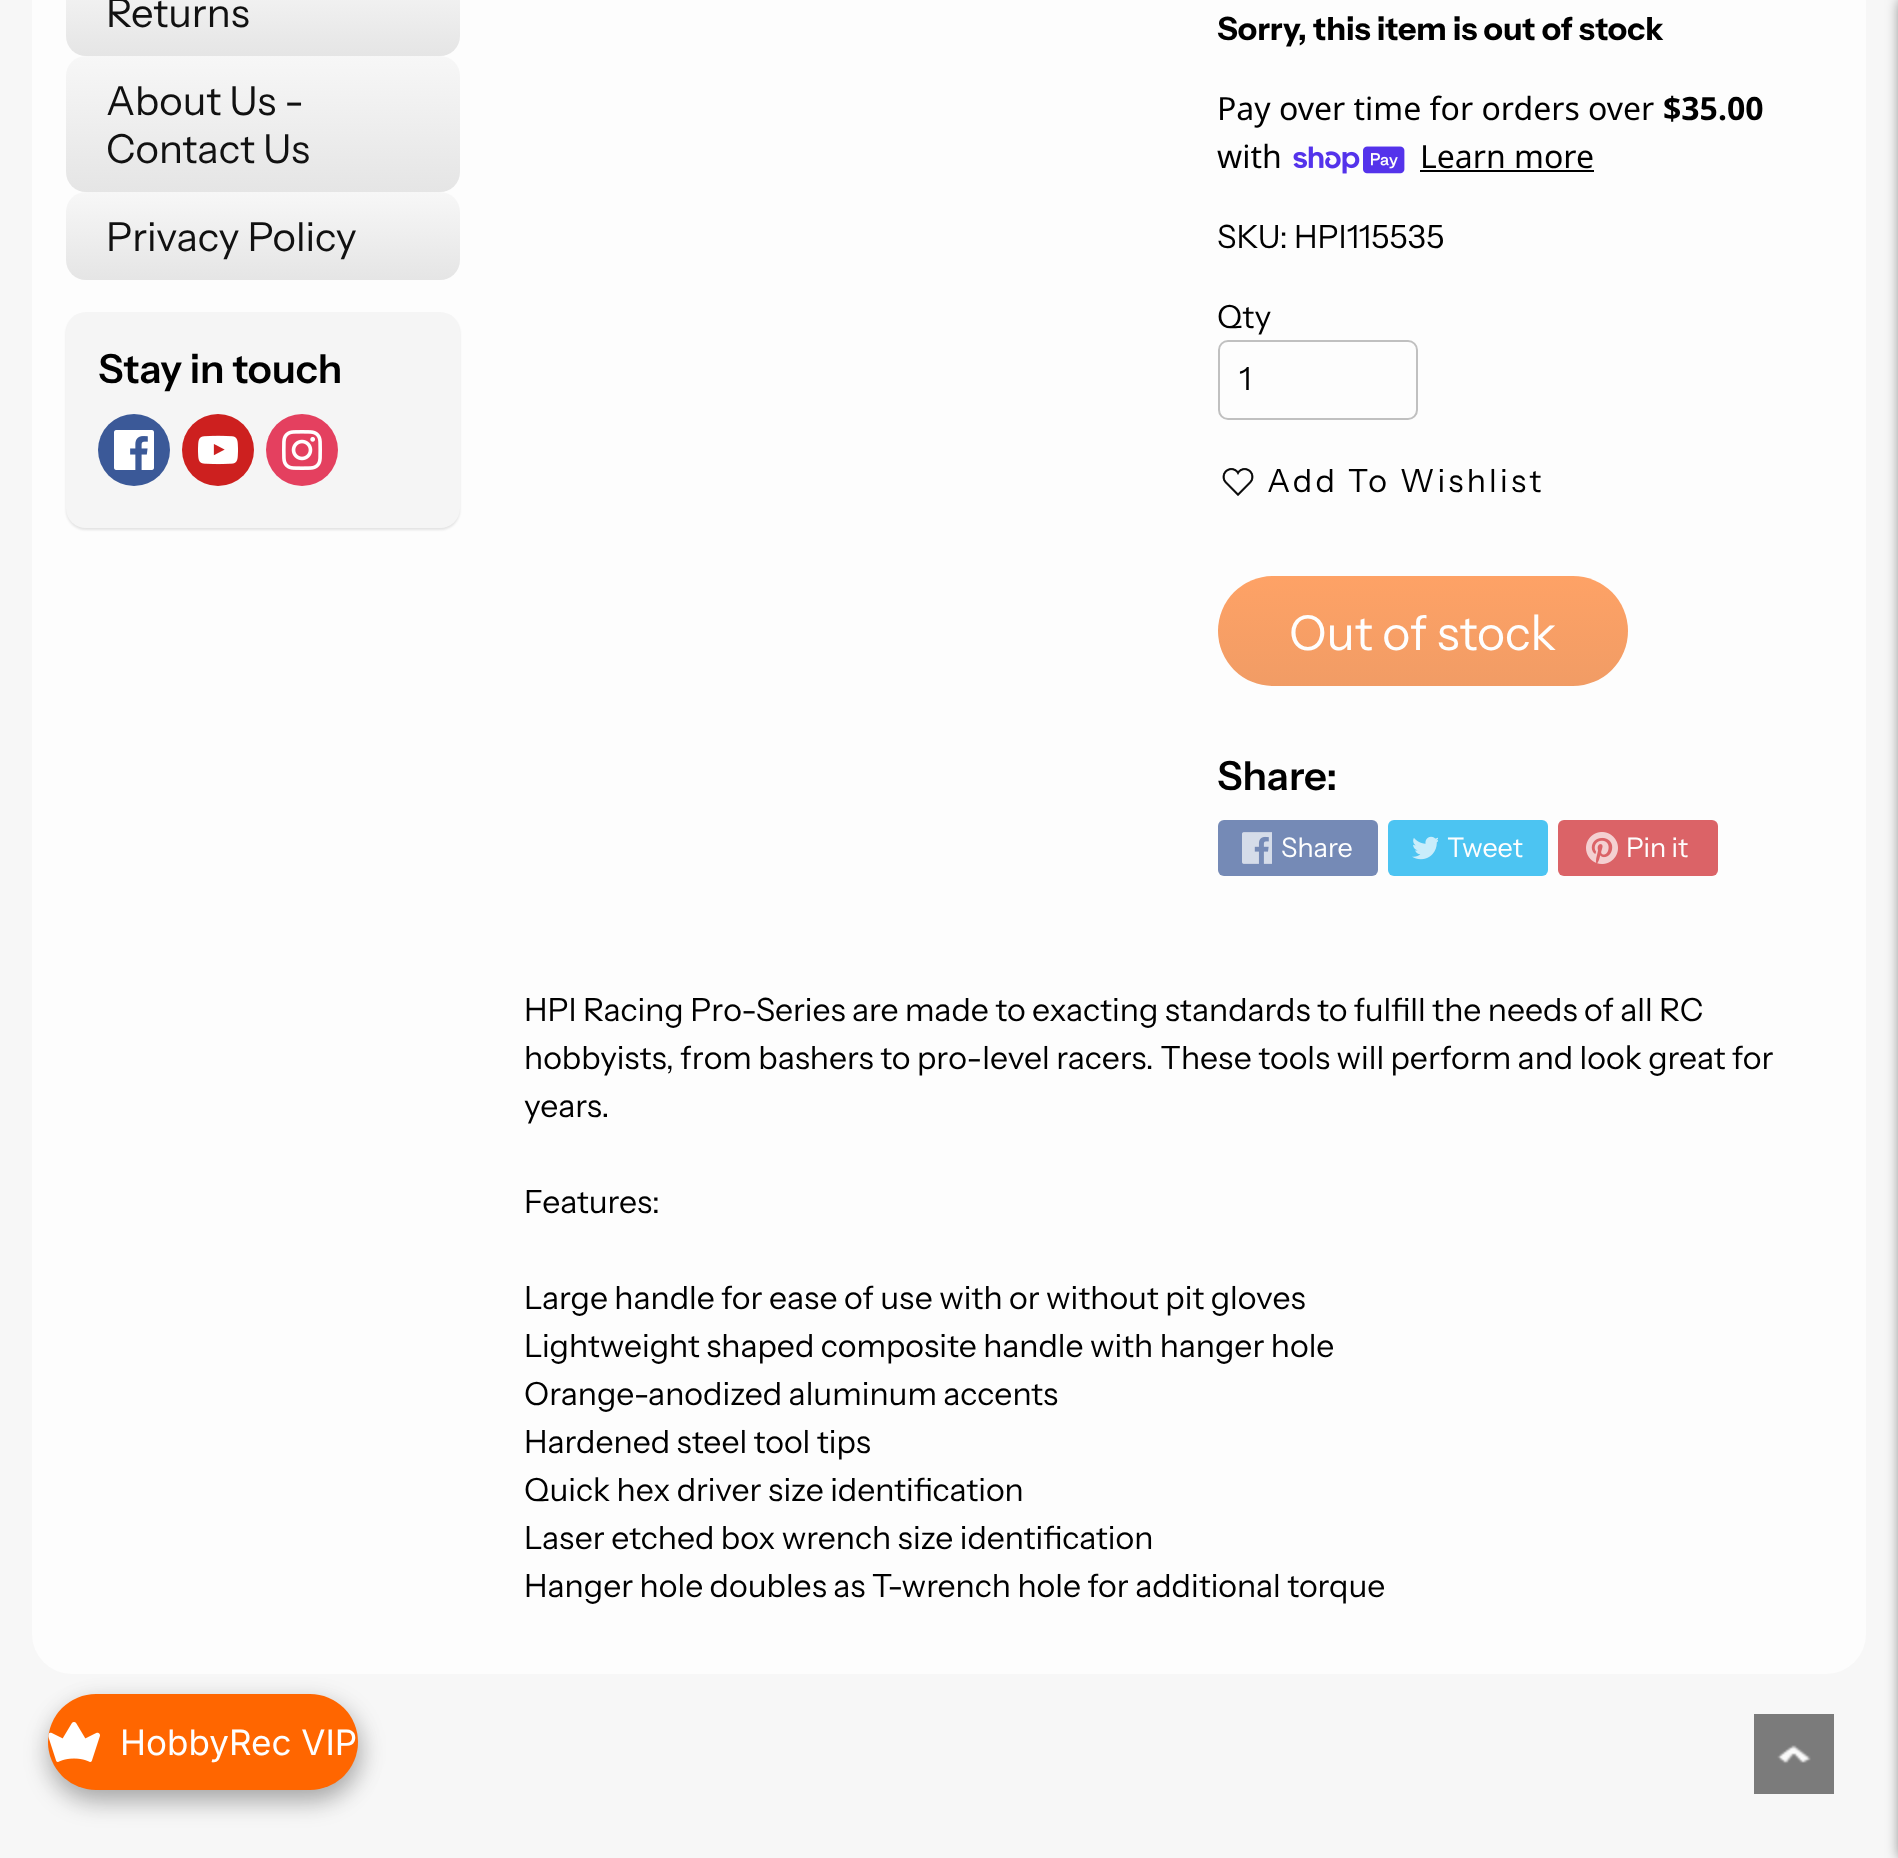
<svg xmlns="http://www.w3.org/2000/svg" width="1898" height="1858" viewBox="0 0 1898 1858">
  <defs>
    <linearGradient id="g1" gradientUnits="userSpaceOnUse" x1="263" y1="-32" x2="263" y2="56"><stop offset="0" stop-color="#f7f7f7"/><stop offset="1" stop-color="#e5e5e5"/></linearGradient>
    <linearGradient id="g2" gradientUnits="userSpaceOnUse" x1="263" y1="56" x2="263" y2="192"><stop offset="0" stop-color="#f7f7f7"/><stop offset="1" stop-color="#e5e5e5"/></linearGradient>
    <linearGradient id="g3" gradientUnits="userSpaceOnUse" x1="263" y1="192" x2="263" y2="280"><stop offset="0" stop-color="#f7f7f7"/><stop offset="1" stop-color="#e5e5e5"/></linearGradient>
    <linearGradient id="g4" gradientUnits="userSpaceOnUse" x1="1423" y1="576" x2="1423" y2="686"><stop offset="0" stop-color="#fea266"/><stop offset="1" stop-color="#f19c65"/></linearGradient>
  </defs>
  <rect width="100%" height="100%" fill="#f7f7f7"/>
  <rect x="32" y="-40" width="1834" height="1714" rx="40" fill="#fdfdfd"/>
  <rect x="66" y="-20" width="394" height="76" rx="20" fill="url(#g1)"/>
  <rect x="66" y="56" width="394" height="136" rx="20" fill="url(#g2)"/>
  <rect x="66" y="192" width="394" height="88" rx="20" fill="url(#g3)"/>
  <rect x="66" y="314" width="394" height="216" rx="20" fill="#0000001a" filter="blur(1px)"/>
  <rect x="66" y="312" width="394" height="216" rx="20" fill="#f5f5f5"/>
  <circle cx="134" cy="450" r="36" fill="#3b5998"/>
  <image x="114" y="430" width="40" height="40" href="img/1.png"/>
  <circle cx="218" cy="450" r="36" fill="#cd201f"/>
  <image x="198" y="435" width="40" height="30" href="img/2.png"/>
  <circle cx="302" cy="450" r="36" fill="#e4405f"/>
  <image x="282" y="430" width="40" height="40" href="img/3.png"/>
  <image x="1293" y="146" width="112" height="28" href="img/4.png"/>
  <path d="M1420 170h174v2H1420z" fill="#000"/>
  <rect x="1219" y="341" width="198" height="78" rx="9" fill="none" stroke="#c0c0c0" stroke-width="2"/>
  <image x="1222" y="468" width="32" height="28" href="img/5.png"/>
  <rect x="1218" y="576" width="410" height="110" rx="55" fill="url(#g4)"/>
  <rect x="1218" y="820" width="160" height="56" rx="6" fill="#758ab6"/>
  <image x="1242" y="832" width="30" height="32" href="img/6.png"/>
  <rect x="1388" y="820" width="160" height="56" rx="6" fill="#4cc4f2"/>
  <image x="1412" y="836" width="26" height="24" href="img/7.png"/>
  <rect x="1558" y="820" width="160" height="56" rx="6" fill="#db6367"/>
  <image x="1586" y="832" width="32" height="32" href="img/8.png"/>
  <image x="1754" y="1714" width="80" height="80" href="img/9.png"/>
  <path d="M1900 0h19v1858H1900z" fill="#00000080" filter="blur(7px)"/>
  <rect x="54" y="1700" width="310" height="96" rx="48" fill="#0000001a" filter="blur(12px)"/>
  <rect x="48" y="1706" width="310" height="96" rx="48" fill="#00000040" filter="blur(12px)"/>
  <rect x="48" y="1694" width="310" height="96" rx="48" fill="#f60"/>
  <image x="48" y="1722" width="52" height="40" href="img/10.png"/>
  <g font-family="Instrument Sans" font-size="40" fill="#111">
    <text x="106" y="27">Returns</text>
    <text x="106" y="115">About Us -</text>
    <text x="106" y="163">Contact Us</text>
    <text x="106" y="251">Privacy Policy</text>
  </g>
  <text x="98" y="383" font-family="Instrument Sans" font-size="40" font-weight="600" fill="#000">Stay in touch</text>
  <text x="1217" y="40" font-family="Instrument Sans" font-size="32" font-weight="bold" fill="#000">Sorry, this item is out of stock</text>
  <text x="1217" y="120" font-family="Noto Sans" font-size="32" fill="#000">Pay over time for orders over</text>
  <text x="1663" y="120" font-family="Noto Sans" font-size="32" font-weight="bold" fill="#000">$35.00</text>
  <g font-family="Noto Sans" font-size="32" fill="#000">
    <text x="1217" y="168">with</text>
    <text x="1420" y="168">Learn more</text>
  </g>
  <g font-family="Instrument Sans" font-size="32" fill="#000">
    <text x="1217" y="248">SKU: HPI115535</text>
    <text x="1217" y="328">Qty</text>
    <text x="1239" y="390">1</text>
  </g>
  <text x="1267" y="492" font-family="Instrument Sans" font-size="32" letter-spacing="3.25" fill="#000">Add To Wishlist</text>
  <text x="1289" y="650" font-family="Instrument Sans" font-size="48" fill="#fefefe">Out of stock</text>
  <text x="1217" y="790" font-family="Instrument Sans" font-size="40" font-weight="600" fill="#000">Share:</text>
  <g font-family="Instrument Sans" font-size="27" fill="#fefefe">
    <text x="1281" y="857">Share</text>
    <text x="1447" y="857">Tweet</text>
    <text x="1626" y="857">Pin it</text>
  </g>
  <g font-family="Instrument Sans" font-size="32" fill="#000">
    <text x="524" y="1021">HPI Racing Pro-Series are made to exacting standards to fulfill the needs of all RC</text>
    <text x="524" y="1069">hobbyists, from bashers to pro-level racers. These tools will perform and look great for</text>
    <text x="524" y="1117">years.</text>
    <text x="524" y="1213">Features:</text>
    <text x="524" y="1309">Large handle for ease of use with or without pit gloves</text>
    <text x="524" y="1357">Lightweight shaped composite handle with hanger hole</text>
    <text x="524" y="1405">Orange-anodized aluminum accents</text>
    <text x="524" y="1453">Hardened steel tool tips</text>
    <text x="524" y="1501">Quick hex driver size identification</text>
    <text x="524" y="1549">Laser etched box wrench size identification</text>
    <text x="524" y="1597">Hanger hole doubles as T-wrench hole for additional torque</text>
  </g>
  <text x="120" y="1755" font-family="Inter" font-size="35" fill="#fefefe">HobbyRec VIP</text>
</svg>
